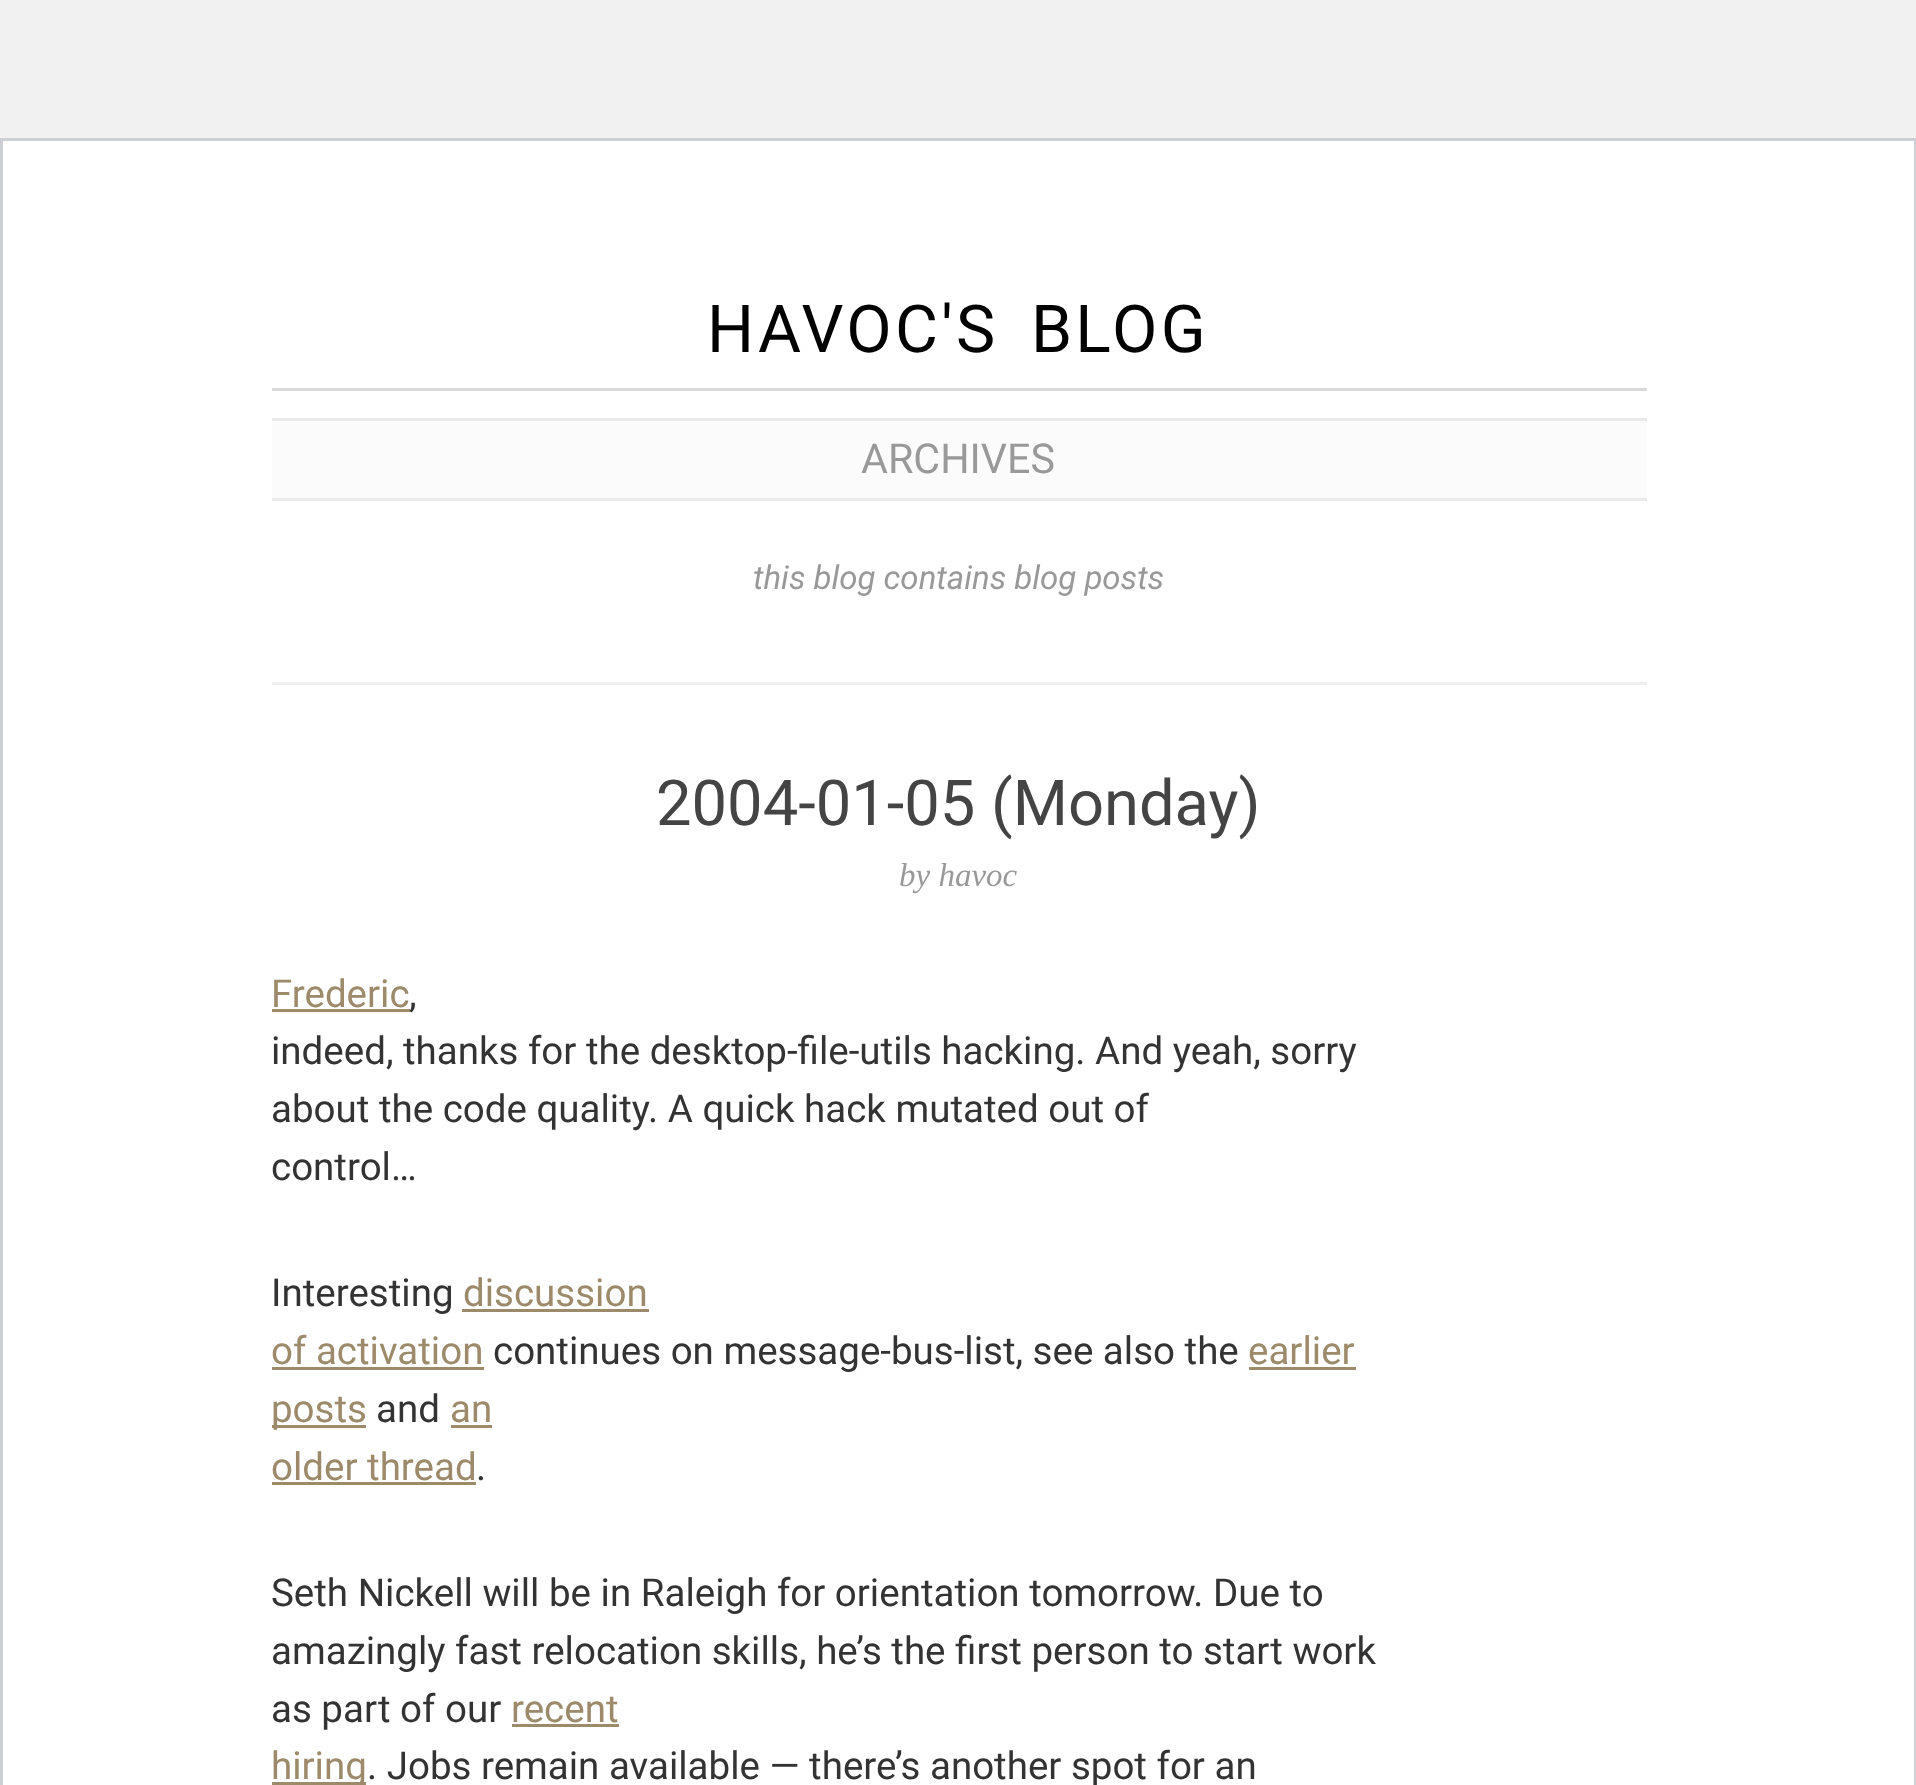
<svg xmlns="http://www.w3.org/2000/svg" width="1916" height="1785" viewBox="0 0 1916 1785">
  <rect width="100%" height="100%" fill="#f1f1f1"/>
  <path d="M1.5 139.5h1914v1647H1.5z" fill="#fff" stroke="#ccd0d4" stroke-width="3"/>
  <path d="M272 388h1375v3H272z" fill="#dadada"/>
  <path d="M272 421h1375v77H272z" fill="#fbfbfb"/>
  <path d="M272 418h1375v3H272z" fill="#eaeaea"/>
  <path d="M272 498h1375v3H272z" fill="#eaeaea"/>
  <path d="M272 682h1375v3H272z" fill="#efefef"/>
  <path d="M272 1009h138v3H272z" fill="#9c8a6a"/>
  <path d="M462 1309h187v3H462z" fill="#9c8a6a"/>
  <path d="M272 1367h212v3H272z" fill="#9c8a6a"/>
  <path d="M1249 1367h107v3H1249z" fill="#9c8a6a"/>
  <path d="M272 1425h94v3H272z" fill="#9c8a6a"/>
  <path d="M451 1425h41v3H451z" fill="#9c8a6a"/>
  <path d="M272 1482h204v3H272z" fill="#9c8a6a"/>
  <path d="M512 1724h107v3H512z" fill="#9c8a6a"/>
  <path d="M272 1782h94v3H272z" fill="#9c8a6a"/>
  <text x="707" y="352" word-spacing="13" font-family="Roboto" font-size="66" letter-spacing="3.25" fill="#000">HAVOC'S BLOG</text>
  <text x="861" y="473" font-family="Roboto" font-size="41.25" fill="#999">ARCHIVES</text>
  <text x="753" y="589" font-family="Roboto" font-size="33" font-style="italic" fill="#999">this blog contains blog posts</text>
  <text x="656" y="825" font-family="Roboto" font-size="63.25" fill="#444">2004-01-05 (Monday)</text>
  <text x="899" y="886" font-family="Liberation Serif" font-size="33" font-style="italic" fill="#999">by havoc</text>
  <text x="271" y="1007" font-family="Roboto" font-size="38.5" fill="#9c8a6a">Frederic</text>
  <g font-family="Roboto" font-size="38.5" fill="#333">
    <text x="409" y="1007">,</text>
    <text x="271" y="1064">indeed, thanks for the desktop-file-utils hacking. And yeah, sorry</text>
    <text x="271" y="1122">about the code quality. A quick hack mutated out of</text>
    <text x="271" y="1180">control…</text>
    <text x="271" y="1306">Interesting</text>
  </g>
  <g font-family="Roboto" font-size="38.5" fill="#9c8a6a">
    <text x="463" y="1306">discussion</text>
    <text x="271" y="1364">of activation</text>
  </g>
  <text x="493" y="1364" font-family="Roboto" font-size="38.5" fill="#333">continues on message-bus-list, see also the</text>
  <g font-family="Roboto" font-size="38.5" fill="#9c8a6a">
    <text x="1248" y="1364">earlier</text>
    <text x="271" y="1422">posts</text>
  </g>
  <text x="376" y="1422" font-family="Roboto" font-size="38.5" fill="#333">and</text>
  <g font-family="Roboto" font-size="38.5" fill="#9c8a6a">
    <text x="450" y="1422">an</text>
    <text x="271" y="1480">older thread</text>
  </g>
  <g font-family="Roboto" font-size="38.5" fill="#333">
    <text x="476" y="1480">.</text>
    <text x="271" y="1606">Seth Nickell will be in Raleigh for orientation tomorrow. Due to</text>
    <text x="271" y="1664">amazingly fast relocation skills, he’s the first person to start work</text>
    <text x="271" y="1722">as part of our</text>
  </g>
  <g font-family="Roboto" font-size="38.5" fill="#9c8a6a">
    <text x="511" y="1722">recent</text>
    <text x="271" y="1779">hiring</text>
  </g>
  <text x="367" y="1779" font-family="Roboto" font-size="38.5" fill="#333">. Jobs remain available — there’s another spot for an</text>
</svg>
